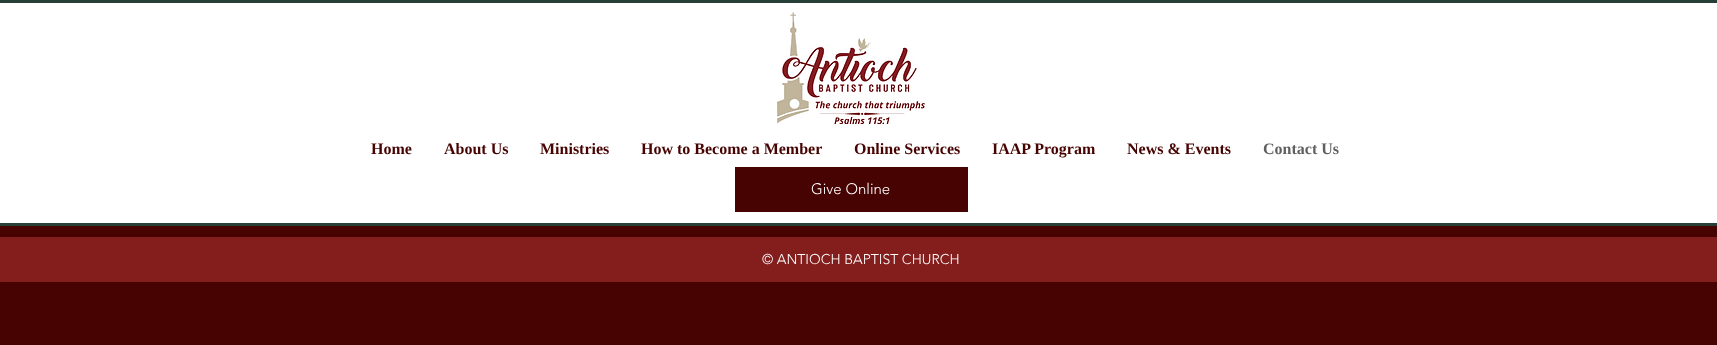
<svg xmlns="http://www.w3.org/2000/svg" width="1717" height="345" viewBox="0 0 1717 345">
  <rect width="100%" height="100%" fill="#460302"/>
  <path d="M0 3h1717v220H0z" fill="#fff"/>
  <path d="M0 0h1717v3H0z" fill="#273f37"/>
  <path d="M0 223h1717v3H0z" fill="#273f37"/>
  <image x="776" y="12" width="149" height="112" href="img/1.png"/>
  <path d="M735 167h233v45H735z" fill="#460302"/>
  <path d="M0 237h1717v45H0z" fill="#831e1d"/>
  <g font-family="Liberation Serif" font-size="16" font-weight="bold" fill="#460302">
    <text x="371" y="154">Home</text>
    <text x="444" y="154">About Us</text>
    <text x="540" y="154">Ministries</text>
    <text x="641" y="154">How to Become a Member</text>
    <text x="854" y="154">Online Services</text>
    <text x="992" y="154">IAAP Program</text>
    <text x="1127" y="154">News &amp; Events</text>
  </g>
  <text x="1263" y="154" font-family="Liberation Serif" font-size="16" font-weight="bold" fill="#606060">Contact Us</text>
  <text x="811" y="194" font-family="'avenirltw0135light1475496'" font-size="15" font-weight="300" fill="#fff">Give Online</text>
  <text x="762" y="264" font-family="'avenirltw0135light1475496'" font-size="14" font-weight="300" fill="#fff">© ANTIOCH BAPTIST CHURCH</text>
</svg>
